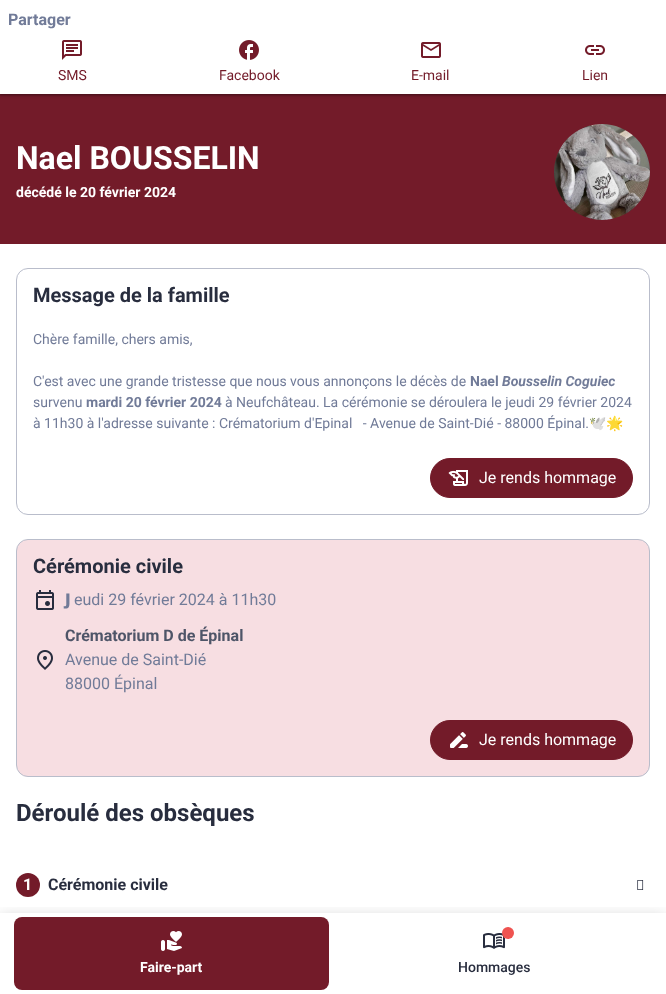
<svg xmlns="http://www.w3.org/2000/svg" width="666" height="994" viewBox="0 0 666 994">
  <defs>
    <clipPath id="clip1"><path d="M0 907h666v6H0z"/></clipPath>
  </defs>
  <rect width="100%" height="100%" fill="#fff"/>
  <path d="M0 94h666v150H0z" fill="#731b29"/>
  <path d="M-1 0h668v96H-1z" fill="#00000026" filter="blur(1.5px)"/>
  <path d="M0 1h666v94H0z" fill="#0000004d" filter="blur(1px)"/>
  <path d="M0 0h666v94H0z" fill="#fff"/>
  <image x="62" y="40" width="20" height="20" href="img/1.png"/>
  <image x="239" y="40" width="20" height="20" href="img/2.png"/>
  <image x="421" y="42" width="20" height="16" href="img/3.png"/>
  <image x="585" y="45" width="20" height="10" href="img/4.png"/>
  <image x="554" y="124" width="96" height="96" href="img/5.png"/>
  <rect x="16.5" y="268.5" width="633" height="246" rx="11.5" fill="none" stroke="#b9bdcb"/>
  <rect x="430.5" y="458.5" width="202" height="39" rx="19.5" fill="#731b29" stroke="#731b29"/>
  <image x="448" y="470" width="20" height="16" href="img/6.png"/>
  <rect x="16.5" y="539.5" width="633" height="237" rx="11.5" fill="#f7dee2" stroke="#b9bdcb"/>
  <image x="36" y="590" width="18" height="20" href="img/7.png"/>
  <image x="37" y="650" width="16" height="20" href="img/8.png"/>
  <rect x="430.5" y="720.5" width="202" height="39" rx="19.5" fill="#731b29" stroke="#731b29"/>
  <image x="450" y="732" width="18" height="16" href="img/9.png"/>
  <circle cx="28" cy="885" r="12" fill="#731b29"/>
  <image x="637" y="880" width="7" height="10" href="img/10.png"/>
  <g clip-path="url(#clip1)">
    <path d="M0 917h666v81H0z" fill="#00000033" filter="blur(8px)"/>
  </g>
  <rect x="14" y="917" width="315" height="73" rx="8" fill="#731b29"/>
  <image x="161" y="931" width="21" height="20" href="img/11.png"/>
  <image x="483" y="933" width="22" height="16" href="img/12.png"/>
  <circle cx="508" cy="933" r="6" fill="#ef5350"/>
  <text x="8" y="25" font-family="Roboto" font-size="16" font-weight="bold" fill="#717b98">Partager</text>
  <g font-family="Roboto" font-size="14" fill="#731b29">
    <text x="58" y="80">SMS</text>
    <text x="219" y="80">Facebook</text>
    <text x="411" y="80">E-mail</text>
    <text x="582" y="80">Lien</text>
  </g>
  <text x="16" y="169" font-family="Roboto" font-size="32" font-weight="bold" fill="#fff">Nael BOUSSELIN</text>
  <text x="16" y="197" font-family="Roboto" font-size="14" font-weight="bold" fill="#fff">décédé le 20 février 2024</text>
  <text x="33" y="302" font-family="Roboto" font-size="20" font-weight="bold" fill="#282d3e">Message de la famille</text>
  <g font-family="Roboto" font-size="14" fill="#717b98">
    <text x="33" y="344">Chère famille, chers amis,</text>
    <text x="33" y="386">C'est avec une grande tristesse que nous vous annonçons le décès de</text>
  </g>
  <text x="470" y="386" font-family="Roboto" font-size="14" font-weight="bold" fill="#717b98">Nael</text>
  <text x="502" y="386" font-family="Roboto" font-size="14" font-weight="bold" font-style="italic" fill="#717b98">Bousselin Coguiec</text>
  <text x="33" y="407" font-family="Roboto" font-size="14" fill="#717b98">survenu</text>
  <text x="86" y="407" font-family="Roboto" font-size="14" font-weight="bold" fill="#717b98">mardi 20 février 2024</text>
  <g font-family="Roboto" font-size="14" fill="#717b98">
    <text x="225" y="407">à Neufchâteau. La cérémonie se déroulera le jeudi 29 février 2024</text>
    <text x="33" y="428" xml:space="preserve">à 11h30 à l'adresse suivante : Crématorium d'Epinal   - Avenue de Saint-Dié - 88000 Épinal.</text>
  </g>
  <text x="589" y="428" font-family="Noto Color Emoji" font-size="14" fill="#717b98">🕊🌟</text>
  <text x="479" y="483" font-family="Roboto" font-size="16" fill="#fff">Je rends hommage</text>
  <text x="33" y="573" font-family="Roboto" font-size="20" font-weight="bold" fill="#282d3e">Cérémonie civile</text>
  <text x="65" y="605" font-family="Noto Sans" font-size="16" font-weight="900" fill="#717b98">J</text>
  <text x="74" y="605" font-family="Roboto" font-size="16" fill="#717b98">eudi 29 février 2024 à 11h30</text>
  <text x="65" y="641" font-family="Roboto" font-size="16" font-weight="bold" fill="#4e5568">Crématorium D de Épinal</text>
  <g font-family="Roboto" font-size="16" fill="#717b98">
    <text x="65" y="665">Avenue de Saint-Dié</text>
    <text x="65" y="689">88000 Épinal</text>
  </g>
  <text x="479" y="745" font-family="Roboto" font-size="16" fill="#fff">Je rends hommage</text>
  <text x="16" y="821" font-family="Roboto" font-size="24" font-weight="bold" fill="#282d3e">Déroulé des obsèques</text>
  <text x="23" y="890" font-family="Roboto" font-size="16" font-weight="bold" fill="#fff">1</text>
  <text x="48" y="890" font-family="Roboto" font-size="16" font-weight="bold" fill="#282d3e">Cérémonie civile</text>
  <text x="140" y="972" font-family="Roboto" font-size="14" font-weight="bold" fill="#fff">Faire-part</text>
  <text x="458" y="972" font-family="Roboto" font-size="14" font-weight="500" fill="#282d3e">Hommages</text>
</svg>
